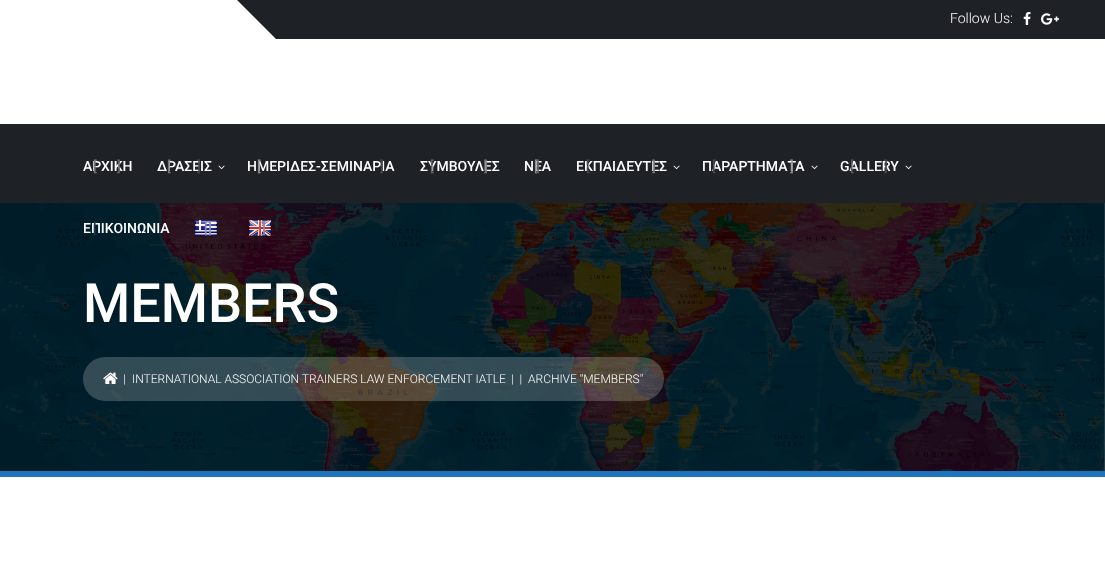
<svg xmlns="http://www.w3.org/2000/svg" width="1105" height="576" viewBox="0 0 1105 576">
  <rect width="100%" height="100%" fill="#fff"/>
  <path d="M237 0H276V39Z" fill="#1e2126"/>
  <path d="M276 0h829v39H276z" fill="#1e2126"/>
  <image x="1023" y="12" width="8" height="13" href="img/1.png"/>
  <image x="1041" y="13" width="18" height="12" href="img/2.png"/>
  <path d="M0 124h1105v79H0z" fill="#1e2126"/>
  <image x="218" y="165" width="7" height="5" href="img/3.png"/>
  <image x="673" y="165" width="7" height="5" href="img/3.png"/>
  <image x="811" y="165" width="7" height="5" href="img/3.png"/>
  <image x="905" y="165" width="7" height="5" href="img/3.png"/>
  <image x="0" y="203" width="1105" height="268" href="img/6.png"/>
  <image x="195" y="220" width="22" height="17" href="img/4.png"/>
  <image x="249" y="220" width="22" height="17" href="img/5.png"/>
  <path d="M0 471h1105v6H0z" fill="#1e73be"/>
  <rect x="83" y="357" width="581" height="44" rx="22" fill="#ffffff33"/>
  <image x="103" y="372" width="15" height="12" href="img/7.png"/>
  <text x="950" y="23" font-family="Roboto" font-size="14" font-weight="300" fill="#fff">Follow Us:</text>
  <text x="83" y="171" font-family="Roboto" font-size="14" font-weight="500" fill="#fff">ΑΡΧΙΚΗ</text>
  <text x="117" y="171" font-family="Roboto" font-size="14" font-weight="500" fill="#626468">]</text>
  <text x="93" y="171" font-family="Roboto" font-size="14" font-weight="500" fill="#75777a">[</text>
  <text x="157" y="171" font-family="Roboto" font-size="14" font-weight="500" fill="#fff">ΔΡΑΣΕΙΣ</text>
  <text x="197" y="171" font-family="Roboto" font-size="14" font-weight="500" fill="#46484c">]</text>
  <text x="167" y="171" font-family="Roboto" font-size="14" font-weight="500" fill="#75777a">[</text>
  <text x="247" y="171" font-family="Roboto" font-size="14" font-weight="500" fill="#fff">ΗΜΕΡΙΔΕΣ-ΣΕΜΙΝΑΡΙΑ</text>
  <text x="380" y="171" font-family="Roboto" font-size="14" font-weight="500" fill="#46484c">]</text>
  <text x="257" y="171" font-family="Roboto" font-size="14" font-weight="500" fill="#8e8f92">[</text>
  <text x="420" y="171" font-family="Roboto" font-size="14" font-weight="500" fill="#fff">ΣΥΜΒΟΥΛΕΣ</text>
  <text x="484" y="171" font-family="Roboto" font-size="14" font-weight="500" fill="#75777a">]</text>
  <text x="430" y="171" font-family="Roboto" font-size="14" font-weight="500" fill="#626468">[</text>
  <text x="524" y="171" font-family="Roboto" font-size="14" font-weight="500" fill="#fff">ΝΕΑ</text>
  <text x="534" y="171" font-family="Roboto" font-size="14" font-weight="500" fill="#8e8f92">[</text>
  <text x="536" y="171" font-family="Roboto" font-size="14" font-weight="500" fill="#626468">]</text>
  <text x="576" y="171" font-family="Roboto" font-size="14" font-weight="500" fill="#fff">ΕΚΠΑΙΔΕΥΤΕΣ</text>
  <text x="652" y="171" font-family="Roboto" font-size="14" font-weight="500" fill="#75777a">]</text>
  <text x="586" y="171" font-family="Roboto" font-size="14" font-weight="500" fill="#46484c">[</text>
  <text x="702" y="171" font-family="Roboto" font-size="14" font-weight="500" fill="#fff">ΠΑΡΑΡΤΗΜΑΤΑ</text>
  <text x="790" y="171" font-family="Roboto" font-size="14" font-weight="500" fill="#8e8f92">]</text>
  <text x="712" y="171" font-family="Roboto" font-size="14" font-weight="500" fill="#46484c">[</text>
  <text x="840" y="171" font-family="Roboto" font-size="14" font-weight="500" fill="#fff">GALLERY</text>
  <text x="884" y="171" font-family="Roboto" font-size="14" font-weight="500" fill="#46484c">]</text>
  <text x="850" y="171" font-family="Roboto" font-size="14" font-weight="500" fill="#5b5d61">[</text>
  <text x="83" y="233" font-family="Roboto" font-size="14" font-weight="500" fill="#fff">ΕΠΙΚΟΙΝΩΝΙΑ</text>
  <text x="93" y="233" font-family="Roboto" font-size="14" font-weight="500" fill="#1d3742">[</text>
  <g font-family="Roboto" font-size="14" font-weight="500" fill="#8d8dbe">
    <text x="204" y="233">[</text>
    <text x="208" y="233">]</text>
  </g>
  <text x="258" y="233" font-family="Roboto" font-size="14" font-weight="500" fill="#ce4c4c">[</text>
  <text x="262" y="233" font-family="Roboto" font-size="14" font-weight="500" fill="#947fa0">]</text>
  <text x="83" y="322" font-family="Roboto" font-size="54" font-weight="500" fill="#fff">MEMBERS</text>
  <g font-family="Roboto" font-size="12" font-weight="300" fill="#fff">
    <text x="123" y="383">|</text>
    <text x="132" y="383">INTERNATIONAL ASSOCIATION TRAINERS LAW ENFORCEMENT IATLE</text>
    <text x="511" y="383" xml:space="preserve">|  |  ARCHIVE "MEMBERS"</text>
  </g>
</svg>
